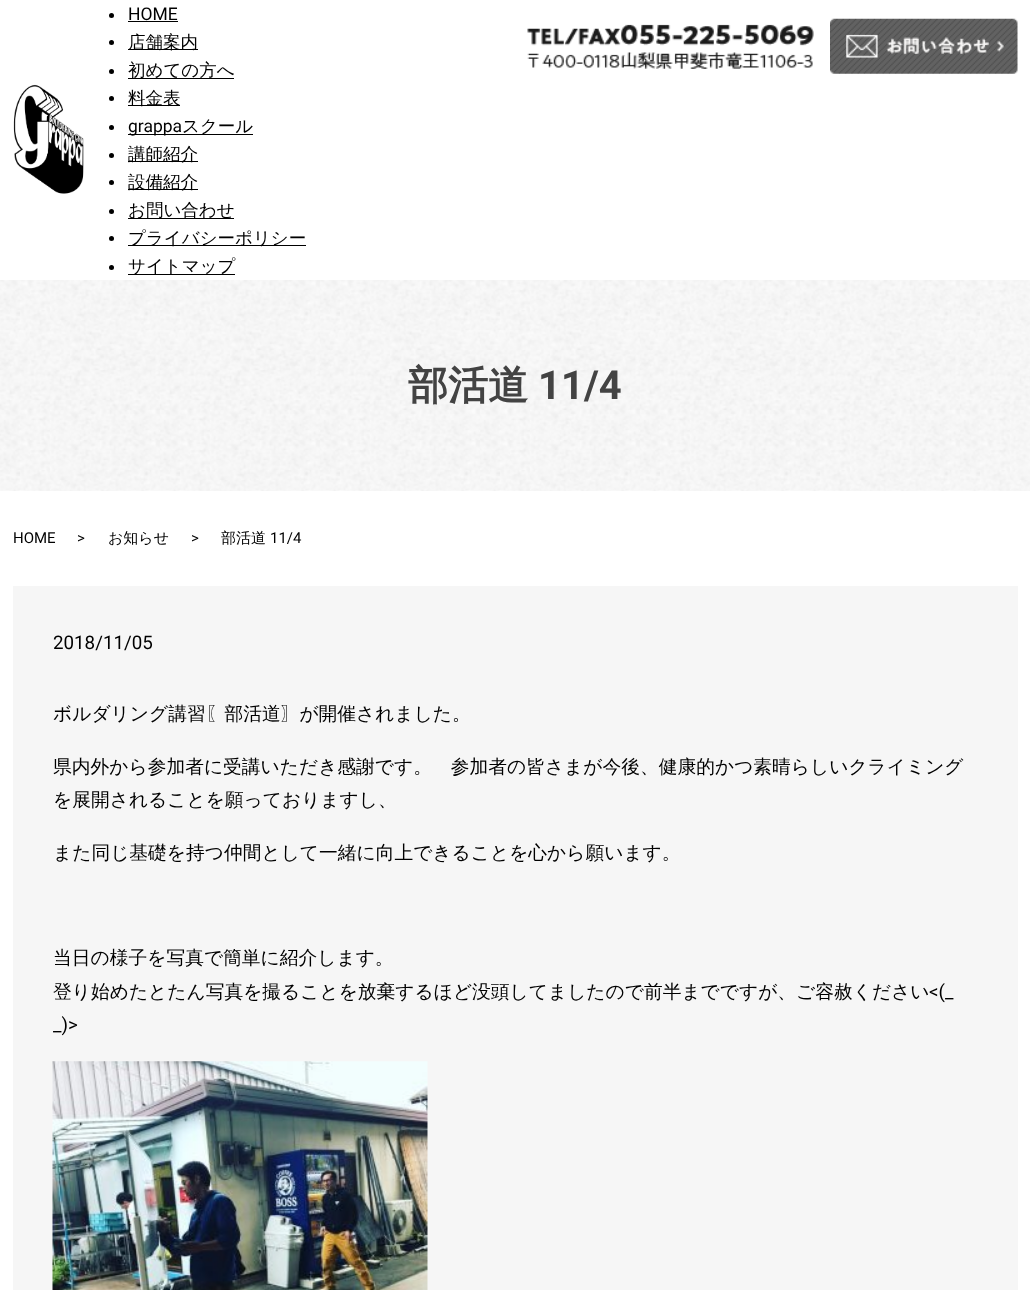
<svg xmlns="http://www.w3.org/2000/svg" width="1030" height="1290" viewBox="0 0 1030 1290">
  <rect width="100%" height="100%" fill="#fff"/>
  <circle cx="111.5" cy="15.5" r="2.5" fill="#000"/>
  <path d="M128 21h50v1H128z" fill="#000"/>
  <circle cx="111.5" cy="42.5" r="2.5" fill="#000"/>
  <path d="M128 49h70v1H128z" fill="#000"/>
  <circle cx="111.5" cy="71.5" r="2.5" fill="#000"/>
  <path d="M128 78h106v1H128z" fill="#000"/>
  <circle cx="111.5" cy="98.5" r="2.5" fill="#000"/>
  <path d="M128 105h52v1H128z" fill="#000"/>
  <circle cx="111.5" cy="127.5" r="2.5" fill="#000"/>
  <path d="M128 134h125v1H128z" fill="#000"/>
  <circle cx="111.5" cy="155.5" r="2.5" fill="#000"/>
  <path d="M128 161h70v1H128z" fill="#000"/>
  <circle cx="111.5" cy="182.5" r="2.5" fill="#000"/>
  <path d="M128 189h70v1H128z" fill="#000"/>
  <circle cx="111.5" cy="211.5" r="2.5" fill="#000"/>
  <path d="M128 218h106v1H128z" fill="#000"/>
  <circle cx="111.5" cy="238.5" r="2.5" fill="#000"/>
  <path d="M128 245h178v1H128z" fill="#000"/>
  <circle cx="111.5" cy="267.5" r="2.5" fill="#000"/>
  <path d="M128 274h107v1H128z" fill="#000"/>
  <image x="527" y="24" width="287" height="45" href="img/1.png"/>
  <image x="830" y="18" width="188" height="56" href="img/2.png"/>
  <image x="13" y="84" width="71" height="110" href="img/3.png"/>
  <image x="0" y="280" width="1030" height="211" href="img/4.png"/>
  <path d="M13 586h1005v704H13z" fill="#f6f6f6"/>
  <image x="52" y="1061" width="376" height="229" href="img/5.png"/>
  <text x="128" y="20" font-family="Roboto" font-size="17.5" fill="#000">HOME</text>
  <g font-family="WenQuanYi Zen Hei" font-size="17.5" font-weight="500" fill="#000">
    <text x="128" y="48">店舗案内</text>
    <text x="128" y="76">初めての方へ</text>
    <text x="128" y="104">料金表</text>
  </g>
  <text x="128" y="132" font-family="Roboto" font-size="17.5" fill="#000">grappa</text>
  <g font-family="WenQuanYi Zen Hei" font-size="17.5" font-weight="500" fill="#000">
    <text x="182" y="132">スクール</text>
    <text x="128" y="160">講師紹介</text>
    <text x="128" y="188">設備紹介</text>
    <text x="128" y="216">お問い合わせ</text>
    <text x="128" y="244">プライバシーポリシー</text>
    <text x="128" y="272">サイトマップ</text>
  </g>
  <text x="408" y="399" font-family="WenQuanYi Zen Hei" font-size="40" font-weight="bold" fill="#434343">部活道</text>
  <text x="538" y="399" font-family="Roboto" font-size="40" font-weight="bold" fill="#434343">11/4</text>
  <g font-family="Roboto" font-size="15" fill="#000">
    <text x="13" y="543">HOME</text>
    <text x="77" y="543">&gt;</text>
  </g>
  <text x="108" y="543" font-family="WenQuanYi Zen Hei" font-size="15" font-weight="500" fill="#000">お知らせ</text>
  <text x="191" y="543" font-family="Roboto" font-size="15" fill="#000">&gt;</text>
  <text x="221" y="543" font-family="WenQuanYi Zen Hei" font-size="15" font-weight="500" fill="#000">部活道</text>
  <text x="270" y="543" font-family="Roboto" font-size="15" fill="#000">11/4</text>
  <text x="53" y="649" font-family="Roboto" font-size="18.75" fill="#000">2018/11/05</text>
  <g font-family="WenQuanYi Zen Hei" font-size="18.75" font-weight="500" fill="#000">
    <text x="53" y="720">ボルダリング講習〖部活道〗が開催されました。</text>
    <text x="53" y="773">県内外から参加者に受講いただき感謝です。　参加者の皆さまが今後、健康的かつ素晴らしいクライミング</text>
    <text x="53" y="806">を展開されることを願っておりますし、</text>
    <text x="53" y="859">また同じ基礎を持つ仲間として一緒に向上できることを心から願います。</text>
    <text x="53" y="964">当日の様子を写真で簡単に紹介します。</text>
    <text x="53" y="998">登り始めたとたん写真を撮ることを放棄するほど没頭してましたので前半までですが、ご容赦ください</text>
  </g>
  <g font-family="Roboto" font-size="18.75" fill="#000">
    <text x="929" y="998">&lt;(_</text>
    <text x="53" y="1031">_)&gt;</text>
  </g>
</svg>
